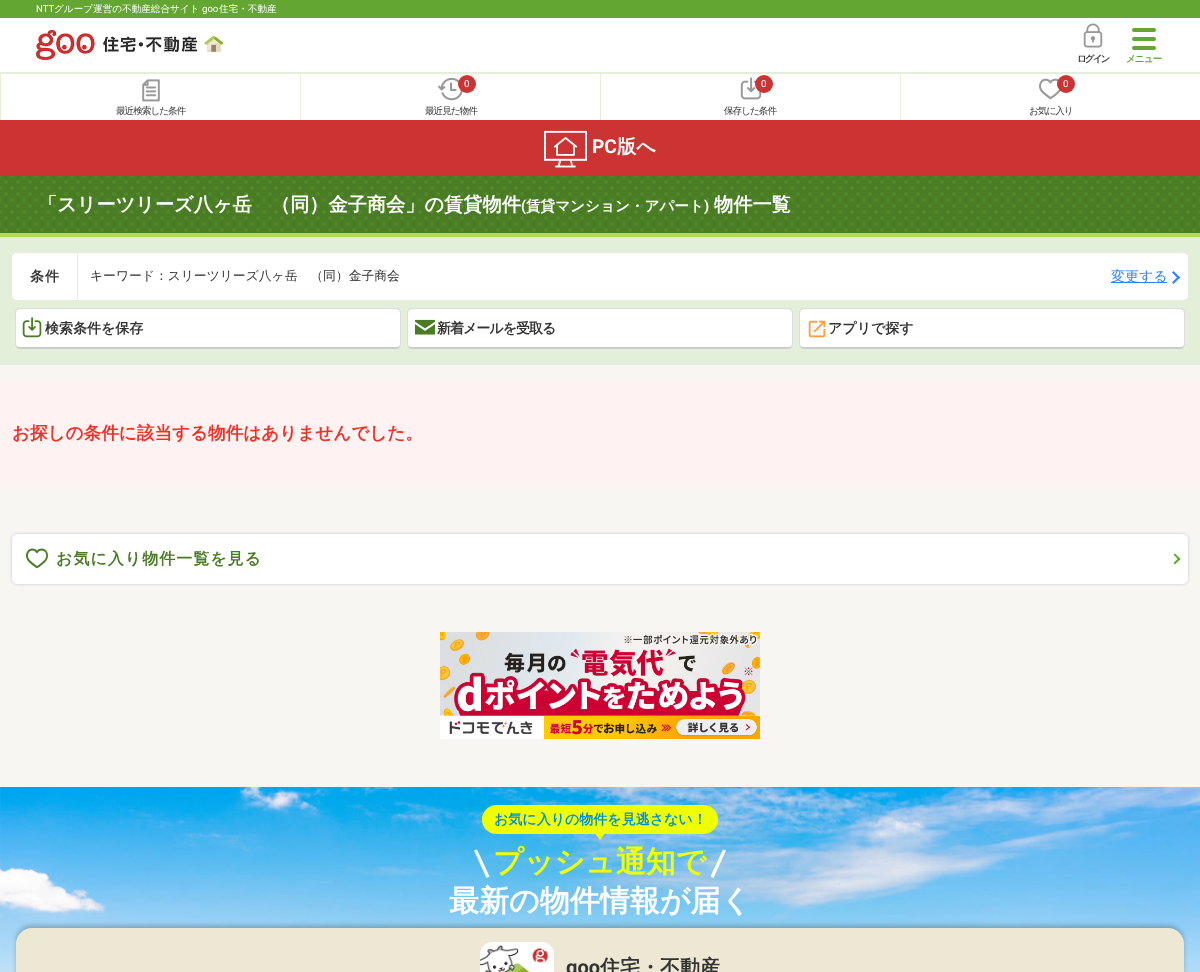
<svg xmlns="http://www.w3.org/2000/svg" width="1200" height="972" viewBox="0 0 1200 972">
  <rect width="100%" height="100%" fill="#f7f6f2"/>
  <path d="M0 18h1200v54H0z" fill="#fff"/>
  <path d="M0 0h1200v18H0z" fill="#63a631"/>
  <image x="36" y="30" width="187" height="30" href="img/1.png"/>
  <image x="1083" y="23" width="20" height="25" href="img/2.png"/>
  <rect x="1132" y="28" width="24" height="4" rx="2" fill="#63a631"/>
  <rect x="1132" y="37" width="24" height="4" rx="2" fill="#63a631"/>
  <rect x="1132" y="46" width="24" height="4" rx="2" fill="#63a631"/>
  <path d="M0 72h1200v2H0z" fill="#e3efd9"/>
  <path d="M1 74h299v46H1z" fill="#fff"/>
  <path d="M0 74h1v46H0z" fill="#e3efd9"/>
  <image x="142" y="79" width="18" height="23" href="img/3.png"/>
  <path d="M301 74h299v46H301z" fill="#fff"/>
  <path d="M300 74h1v46H300z" fill="#e3efd9"/>
  <image x="438" y="77" width="25" height="24" href="img/4.png"/>
  <circle cx="467" cy="84" r="9" fill="#c33"/>
  <path d="M601 74h299v46H601z" fill="#fff"/>
  <path d="M600 74h1v46H600z" fill="#e3efd9"/>
  <image x="740" y="77" width="22" height="23" href="img/5.png"/>
  <circle cx="764" cy="84" r="9" fill="#c33"/>
  <path d="M901 74h299v46H901z" fill="#fff"/>
  <path d="M900 74h1v46H900z" fill="#e3efd9"/>
  <image x="1039" y="78" width="22" height="22" href="img/6.png"/>
  <circle cx="1066" cy="84" r="9" fill="#c33"/>
  <path d="M0 120h1200v56H0z" fill="#c33"/>
  <image x="544" y="130" width="43" height="38" href="img/7.png"/>
  <image x="0" y="176" width="1200" height="57" href="img/8.png"/>
  <path d="M0 233h1200v4H0z" fill="#b1da56"/>
  <path d="M0 237h1200v128H0z" fill="#e3efd9"/>
  <rect x="12" y="253" width="1176" height="47" rx="5" fill="#fff"/>
  <path d="M77 253h1v47H77z" fill="#e3efd9"/>
  <path d="M1111 282h56v1H1111z" fill="#2786f0"/>
  <path d="M1172 272.5L1173.5 271L1180 277.5L1178.5 279Z" fill="#2786f0"/>
  <path d="M1172 282.5L1178.5 276L1180 277.5L1173.5 284Z" fill="#2786f0"/>
  <path d="M20 309H396C398 309 400 311 400 313V344C400 346 398 347 396 347H20C18 347 16 346 16 344V313C16 311 18 309 20 309Z" fill="#fff"/>
  <path d="M20 308C18 308 17 308 16 309L17 310L20 309H396L399 310L400 309C399 308 398 308 396 308Z" fill="#ddd"/>
  <path d="M401 344V313C401 311.5 400.5 310 399.5 309.5L399 310L400 312.5V344.5L399.5 345.5L400 347C400.5 346.5 401 345 401 344Z" fill="#ddd"/>
  <path d="M20 349H396C398 349 399 348 400 347L399 346C399 347 397 347 396 347H20C19 347 17 347 17 346L16 347C17 348 18 349 20 349Z" fill="#ccc"/>
  <path d="M15 313V344C15 345 15.5 346.5 16 347L16.5 345.5L16 344.5V312.5L17 310L16.5 309.5C15.5 310 15 311.5 15 313Z" fill="#ddd"/>
  <image x="22" y="317" width="20" height="21" href="img/9.png"/>
  <path d="M412 309H788C790 309 792 311 792 313V344C792 346 790 347 788 347H412C410 347 408 346 408 344V313C408 311 410 309 412 309Z" fill="#fff"/>
  <path d="M412 308C410 308 409 308 408 309L409 310L412 309H788L791 310L792 309C791 308 790 308 788 308Z" fill="#ddd"/>
  <path d="M793 344V313C793 311.5 792.5 310 791.5 309.5L791 310L792 312.5V344.5L791.5 345.5L792 347C792.5 346.5 793 345 793 344Z" fill="#ddd"/>
  <path d="M412 349H788C790 349 791 348 792 347L791 346C791 347 789 347 788 347H412C411 347 409 347 409 346L408 347C409 348 410 349 412 349Z" fill="#ccc"/>
  <path d="M407 313V344C407 345 407.5 346.5 408 347L408.5 345.5L408 344.5V312.5L409 310L408.5 309.5C407.5 310 407 311.5 407 313Z" fill="#ddd"/>
  <image x="415" y="319" width="20" height="16" href="img/10.png"/>
  <path d="M804 309H1180C1182 309 1184 311 1184 313V344C1184 346 1182 347 1180 347H804C802 347 800 346 800 344V313C800 311 802 309 804 309Z" fill="#fff"/>
  <path d="M804 308C802 308 801 308 800 309L801 310L804 309H1180L1183 310L1184 309C1183 308 1182 308 1180 308Z" fill="#ddd"/>
  <path d="M1185 344V313C1185 311.5 1184.5 310 1183.5 309.5L1183 310L1184 312.5V344.5L1183.5 345.5L1184 347C1184.5 346.5 1185 345 1185 344Z" fill="#ddd"/>
  <path d="M804 349H1180C1182 349 1183 348 1184 347L1183 346C1183 347 1181 347 1180 347H804C803 347 801 347 801 346L800 347C801 348 802 349 804 349Z" fill="#ccc"/>
  <path d="M799 313V344C799 345 799.5 346.5 800 347L800.5 345.5L800 344.5V312.5L801 310L800.5 309.5C799.5 310 799 311.5 799 313Z" fill="#ddd"/>
  <image x="808" y="320" width="18" height="18" href="img/11.png"/>
  <path d="M0 381h1200v105H0z" fill="#fff2f2"/>
  <rect x="12" y="534" width="1176" height="50" rx="5" fill="#00000033" filter="blur(1.5px)"/>
  <rect x="12" y="534" width="1176" height="50" rx="5" fill="#fff"/>
  <image x="26" y="548" width="22" height="21" href="img/12.png"/>
  <path d="M1173.5 554.5L1175 553.5L1180.5 559L1179 560.5Z" fill="#63a631"/>
  <path d="M1173.5 563L1179 557.5L1180.5 559L1175 564.5Z" fill="#63a631"/>
  <image x="440" y="632" width="320" height="107" href="img/13.png"/>
  <image x="0" y="787" width="1200" height="185" href="img/14.png"/>
  <rect x="482" y="805" width="236" height="29" rx="14.5" fill="#f0ff00"/>
  <path d="M594 832H606L600 840Z" fill="#f0ff00"/>
  <path d="M474 850.5L477 849.5L489.5 876.5L486.5 878Z" fill="#fff"/>
  <path d="M723 849.5L726 850.5L713.5 878L710.5 876.5Z" fill="#fff"/>
  <rect x="16" y="925" width="1168" height="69" rx="16" fill="#00000033" filter="blur(2px)"/>
  <path d="M32 928H1168C1177 928 1184 935 1184 944V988H16V944C16 935 23 928 32 928Z" fill="#ede8d3"/>
  <image x="480" y="942" width="74" height="30" href="img/15.png"/>
  <text x="36" y="12" font-family="Roboto" font-size="9.6" fill="#fff">NTT</text>
  <text x="54" y="12" font-family="WenQuanYi Zen Hei" font-size="9.6" font-weight="500" fill="#fff">グループ運営の不動産総合サイト</text>
  <text x="202" y="12" font-family="Roboto" font-size="9.6" fill="#fff">goo</text>
  <text x="219" y="12" font-family="WenQuanYi Zen Hei" font-size="9.6" font-weight="500" fill="#fff">住宅・不動産</text>
  <text x="1077" y="62" font-family="WenQuanYi Zen Hei" font-size="9.6" font-weight="bold" letter-spacing="-2" fill="#333">ログイン</text>
  <text x="1126" y="62" font-family="WenQuanYi Zen Hei" font-size="9.6" font-weight="bold" letter-spacing="-1" fill="#63a631">メニュー</text>
  <text x="116" y="114" font-family="WenQuanYi Zen Hei" font-size="9.6" font-weight="500" letter-spacing="-1" fill="#333">最近検索した条件</text>
  <text x="464" y="87" font-family="Roboto" font-size="9.6" fill="#fff">0</text>
  <text x="425" y="114" font-family="WenQuanYi Zen Hei" font-size="9.6" font-weight="500" letter-spacing="-1" fill="#333">最近見た物件</text>
  <text x="761" y="87" font-family="Roboto" font-size="9.6" fill="#fff">0</text>
  <text x="724" y="114" font-family="WenQuanYi Zen Hei" font-size="9.6" font-weight="500" letter-spacing="-1" fill="#333">保存した条件</text>
  <text x="1063" y="87" font-family="Roboto" font-size="9.6" fill="#fff">0</text>
  <text x="1029" y="114" font-family="WenQuanYi Zen Hei" font-size="9.6" font-weight="500" letter-spacing="-1" fill="#333">お気に入り</text>
  <text x="592" y="153" font-family="Roboto" font-size="19.2" font-weight="bold" fill="#fff">PC</text>
  <g font-family="WenQuanYi Zen Hei" font-size="19.2" font-weight="bold" fill="#fff">
    <text x="617" y="153">版へ</text>
    <text x="38" y="211">「スリーツリーズ八ヶ岳　（同）金子商会」の賃貸物件</text>
  </g>
  <text x="521" y="211" font-family="Roboto" font-size="14.6" font-weight="bold" fill="#fff">(</text>
  <text x="526" y="211" font-family="WenQuanYi Zen Hei" font-size="14.6" font-weight="bold" fill="#fff">賃貸マンション・アパート</text>
  <text x="704" y="211" font-family="Roboto" font-size="14.6" font-weight="bold" fill="#fff">)</text>
  <text x="714" y="211" font-family="WenQuanYi Zen Hei" font-size="19.2" font-weight="bold" fill="#fff">物件一覧</text>
  <text x="30" y="281" font-family="WenQuanYi Zen Hei" font-size="14" font-weight="bold" letter-spacing="1" fill="#333">条件</text>
  <text x="90" y="280" font-family="WenQuanYi Zen Hei" font-size="12.8" font-weight="500" fill="#333">キーワード：スリーツリーズ八ヶ岳　（同）金子商会</text>
  <text x="1111" y="281" font-family="WenQuanYi Zen Hei" font-size="14" font-weight="500" fill="#2786f0">変更する</text>
  <text x="45" y="333" font-family="WenQuanYi Zen Hei" font-size="14" font-weight="bold" fill="#333">検索条件を保存</text>
  <text x="437" y="333" font-family="WenQuanYi Zen Hei" font-size="14" font-weight="bold" letter-spacing="-1" fill="#333">新着メールを受取る</text>
  <text x="828" y="333" font-family="WenQuanYi Zen Hei" font-size="14" font-weight="bold" fill="#333">アプリで探す</text>
  <text x="12" y="439" font-family="WenQuanYi Zen Hei" font-size="17.6" font-weight="bold" fill="#ef3127">お探しの条件に該当する物件はありませんでした。</text>
  <text x="56" y="564" font-family="WenQuanYi Zen Hei" font-size="16" font-weight="bold" letter-spacing="1" fill="#4a7c25">お気に入り物件一覧を見る</text>
  <text x="494" y="824" font-family="WenQuanYi Zen Hei" font-size="14" font-weight="bold" fill="#008ce4">お気に入りの物件を見逃さない！</text>
  <text x="493" y="872" font-family="WenQuanYi Zen Hei" font-size="30" font-weight="bold" fill="#f0ff00">プッシュ通知で</text>
  <text x="449" y="911" font-family="WenQuanYi Zen Hei" font-size="30" font-weight="bold" fill="#fff">最新の物件情報が届く</text>
  <text x="566" y="974" font-family="Roboto" font-size="20" font-weight="bold" fill="#333">goo</text>
  <text x="600" y="974" font-family="WenQuanYi Zen Hei" font-size="20" font-weight="bold" fill="#333">住宅・不動産</text>
</svg>
